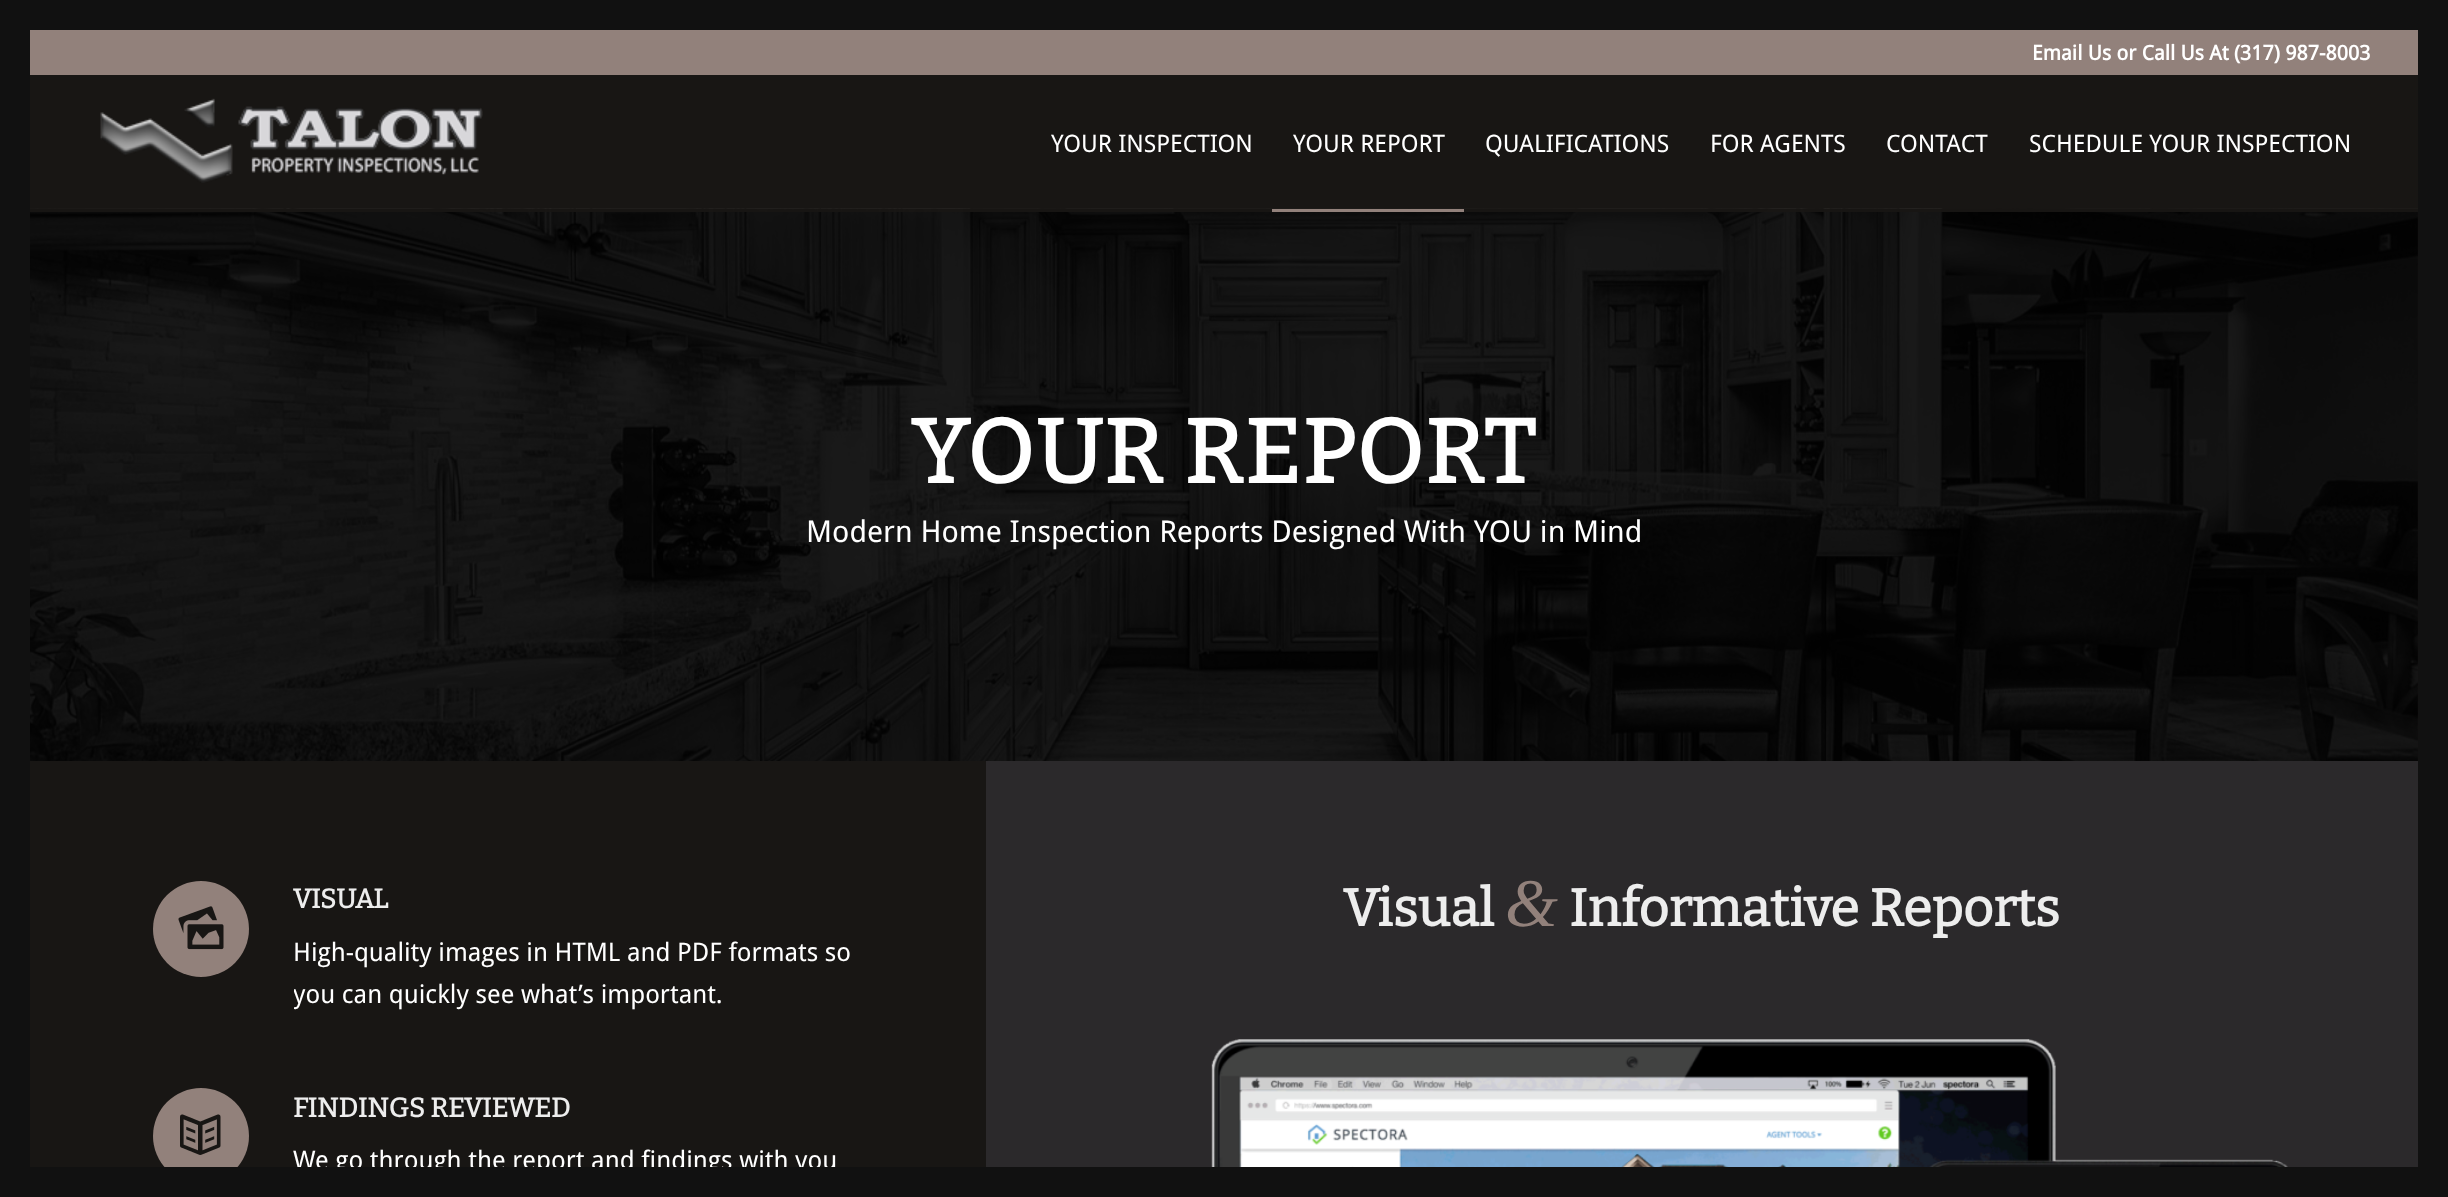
<svg xmlns="http://www.w3.org/2000/svg" width="2448" height="1197" viewBox="0 0 2448 1197">
  <defs>
    <clipPath id="clip1"><path d="M294 881h572v162H294z"/></clipPath>
  </defs>
  <rect width="100%" height="100%" fill="#181614"/>
  <path d="M0 0h30v1197H0z" fill="#111"/>
  <path d="M30 0h2388v30H30z" fill="#111"/>
  <path d="M2418 0h30v1197H2418z" fill="#111"/>
  <path d="M30 30h2388v45H30z" fill="#92817b"/>
  <image x="100" y="98" width="383" height="85" href="img/1.png"/>
  <image x="30" y="208" width="2388" height="553" href="img/2.png"/>
  <path d="M30 208h2388v4H30z" fill="#181614f2"/>
  <path d="M1272 209h192v3H1272z" fill="#92817b"/>
  <circle cx="201" cy="929" r="48" fill="#92817b"/>
  <image x="178" y="906" width="46" height="44" href="img/3.png"/>
  <circle cx="201" cy="1136" r="48" fill="#92817b"/>
  <image x="180" y="1114" width="41" height="41" href="img/4.png"/>
  <path d="M986 761h1432v406H986z" fill="#2b292b"/>
  <image x="1211" y="1039" width="1077" height="128" href="img/5.png"/>
  <text x="2032" y="60" font-family="Droid Sans" font-size="20.4" font-weight="bold" fill="#fff">Email Us or Call Us At (317) 987-8003</text>
  <g font-family="Droid Sans" font-size="24" fill="#fff">
    <text x="1051" y="152">YOUR INSPECTION</text>
    <text x="1293" y="152">YOUR REPORT</text>
    <text x="1485" y="152">QUALIFICATIONS</text>
    <text x="1710" y="152">FOR AGENTS</text>
    <text x="1886" y="152">CONTACT</text>
    <text x="2029" y="152">SCHEDULE YOUR INSPECTION</text>
  </g>
  <text x="911" y="483" font-family="Bitter" font-size="90" font-weight="bold" letter-spacing="1.5" fill="#fff">YOUR REPORT</text>
  <text x="806" y="542" font-family="Droid Sans" font-size="30" fill="#fff">Modern Home Inspection Reports Designed With YOU in Mind</text>
  <text x="293" y="908" font-family="Bitter" font-size="27" font-weight="bold" fill="#ededed">VISUAL</text>
  <text x="293" y="961" font-family="Droid Sans" font-size="25.5" fill="#fff">High-quality images in HTML and PDF formats so</text>
  <g clip-path="url(#clip1)">
    <text x="293" y="1003" font-family="Droid Sans" font-size="25.5" fill="#fff">you can quickly see what’s important.</text>
  </g>
  <text x="293" y="1117" font-family="Bitter" font-size="27" font-weight="bold" fill="#ededed">FINDINGS REVIEWED</text>
  <text x="293" y="1169" font-family="Droid Sans" font-size="25.5" fill="#fff">We go through the report and findings with you</text>
  <text x="1343" y="926" font-family="Bitter" font-size="52.5" font-weight="bold" fill="#ededed">Visual</text>
  <text x="1505" y="926" font-family="Liberation Serif" font-size="68" font-style="italic" fill="#92817b">&amp;</text>
  <text x="1569" y="926" font-family="Bitter" font-size="52.5" font-weight="bold" fill="#ededed">Informative Reports</text>
  <path d="M30 1167h2388v30H30z" fill="#111"/>
</svg>
